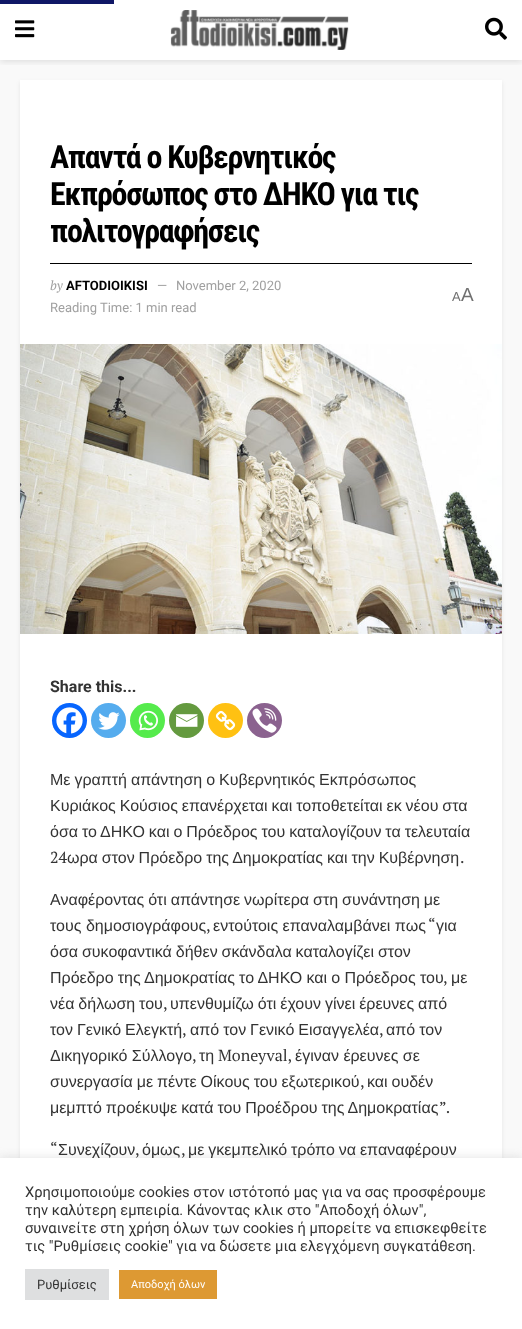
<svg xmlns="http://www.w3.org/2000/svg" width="522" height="1329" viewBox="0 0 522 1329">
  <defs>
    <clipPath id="clip1"><path d="M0 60h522v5H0z"/></clipPath>
  </defs>
  <rect width="100%" height="100%" fill="#fff"/>
  <path d="M0 60h522v1098H0z" fill="#f9f9f9"/>
  <g clip-path="url(#clip1)">
    <path d="M0 2h522v60H0z" fill="#0000001a" filter="blur(3px)"/>
  </g>
  <path d="M0 0h114v4H0z" fill="#101766"/>
  <image x="15" y="20" width="20" height="18" href="img/1.png"/>
  <image x="170" y="10" width="179" height="40" href="img/2.png"/>
  <image x="485" y="17" width="22" height="23" href="img/3.png"/>
  <path d="M20 82h482v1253H20z" fill="#00000014" filter="blur(2px)"/>
  <path d="M20 80h482v1078H20z" fill="#fff"/>
  <path d="M50 263h422v1H50z" fill="#000"/>
  <image x="20" y="344" width="482" height="290" href="img/4.png"/>
  <circle cx="69.5" cy="720.5" r="17.5" fill="#0765fe"/>
  <image x="56" y="707" width="27" height="27" href="img/5.png"/>
  <circle cx="108.5" cy="720.5" r="17.5" fill="#55acee"/>
  <image x="98" y="712" width="22" height="18" href="img/6.png"/>
  <circle cx="147.5" cy="720.5" r="17.5" fill="#55eb4c"/>
  <image x="138" y="710" width="20" height="21" href="img/7.png"/>
  <circle cx="186.5" cy="720.5" r="17.5" fill="#649a3f"/>
  <image x="176" y="714" width="22" height="13" href="img/8.png"/>
  <circle cx="225.5" cy="720.5" r="17.5" fill="#ffc112"/>
  <image x="215" y="710" width="21" height="21" href="img/9.png"/>
  <circle cx="264.5" cy="720.5" r="17.5" fill="#8b628f"/>
  <image x="252" y="708" width="25" height="25" href="img/10.png"/>
  <path d="M0 1157h522v171H0z" fill="#acabab4d" filter="blur(5px)"/>
  <g font-family="Roboto Condensed" font-size="32" font-weight="bold" letter-spacing="-1.25" fill="#000">
    <text x="50" y="168">Απαντά ο Κυβερνητικός</text>
    <text x="50" y="205">Εκπρόσωπος στο ΔΗΚΟ για τις</text>
    <text x="50" y="242">πολιτογραφήσεις</text>
  </g>
  <text x="50" y="290" font-family="PT Serif" font-size="13" font-style="italic" fill="#a0a0a0">by</text>
  <text x="66" y="290" font-family="Roboto" font-size="13" font-weight="bold" fill="#000">AFTODIOIKISI</text>
  <g font-family="Roboto" font-size="13" fill="#a0a0a0">
    <text x="157" y="290">—</text>
    <text x="176" y="290">November 2, 2020</text>
    <text x="50" y="312">Reading Time: 1 min read</text>
  </g>
  <text x="452" y="301" font-family="Liberation Sans" font-size="13" fill="#707070">A</text>
  <text x="461" y="301" font-family="Liberation Sans" font-size="19" fill="#707070">A</text>
  <text x="50" y="692" font-family="Roboto" font-size="16" font-weight="bold" fill="#333">Share this...</text>
  <g font-family="Liberation Sans" font-size="16" fill="#333">
    <text x="50" y="785" word-spacing="-0.5">Με γραπτή απάντηση ο Κυβερνητικός Εκπρόσωπος</text>
    <text x="50" y="811" word-spacing="-0.5">Κυριάκος Κούσιος επανέρχεται και τοποθετείται εκ νέου στα</text>
    <text x="50" y="837" word-spacing="-0.5">όσα το ΔΗΚΟ και ο Πρόεδρος του καταλογίζουν τα τελευταία</text>
  </g>
  <text x="50" y="863" font-family="PT Serif" font-size="16" fill="#333">24</text>
  <text x="67" y="863" word-spacing="-0.5" font-family="Liberation Sans" font-size="16" fill="#333">ωρα στον Πρόεδρο της Δημοκρατίας και την Κυβέρνηση</text>
  <text x="460" y="863" font-family="PT Serif" font-size="16" fill="#333">.</text>
  <g font-family="Liberation Sans" font-size="16" fill="#333">
    <text x="50" y="905" word-spacing="-0.5">Αναφέροντας ότι απάντησε νωρίτερα στη συνάντηση με</text>
    <text x="50" y="931">τους δημοσιογράφους</text>
  </g>
  <text x="206" y="931" font-family="PT Serif" font-size="16" fill="#333">,</text>
  <text x="213" y="931" font-family="Liberation Sans" font-size="16" fill="#333">εντούτοις επαναλαμβάνει πως</text>
  <text x="428" y="931" font-family="PT Serif" font-size="16" fill="#333">“</text>
  <g font-family="Liberation Sans" font-size="16" fill="#333">
    <text x="436" y="931">για</text>
    <text x="50" y="957" word-spacing="-0.5">όσα συκοφαντικά δήθεν σκάνδαλα καταλογίζει στον</text>
    <text x="50" y="983" word-spacing="-0.25">Πρόεδρο της Δημοκρατίας το ΔΗΚΟ και ο Πρόεδρος του</text>
  </g>
  <text x="443" y="983" font-family="PT Serif" font-size="16" fill="#333">,</text>
  <g font-family="Liberation Sans" font-size="16" fill="#333">
    <text x="451" y="983">με</text>
    <text x="50" y="1009" word-spacing="-0.5">νέα δήλωση του</text>
  </g>
  <text x="163" y="1009" font-family="PT Serif" font-size="16" fill="#333">,</text>
  <g font-family="Liberation Sans" font-size="16" fill="#333">
    <text x="170" y="1009" word-spacing="-0.5">υπενθυμίζω ότι έχουν γίνει έρευνες από</text>
    <text x="50" y="1035" word-spacing="-0.5">τον Γενικό Ελεγκτή</text>
  </g>
  <text x="182" y="1035" font-family="PT Serif" font-size="16" fill="#333">,</text>
  <text x="190" y="1035" word-spacing="-0.5" font-family="Liberation Sans" font-size="16" fill="#333">από τον Γενικό Εισαγγελέα</text>
  <text x="379" y="1035" font-family="PT Serif" font-size="16" fill="#333">,</text>
  <g font-family="Liberation Sans" font-size="16" fill="#333">
    <text x="386" y="1035" word-spacing="-0.5">από τον</text>
    <text x="50" y="1061">Δικηγορικό Σύλλογο</text>
  </g>
  <text x="192" y="1061" font-family="PT Serif" font-size="16" fill="#333">,</text>
  <text x="199" y="1061" font-family="Liberation Sans" font-size="16" fill="#333">τη</text>
  <text x="218" y="1061" font-family="PT Serif" font-size="16" fill="#333">Moneyval,</text>
  <g font-family="Liberation Sans" font-size="16" fill="#333">
    <text x="295" y="1061">έγιναν έρευνες σε</text>
    <text x="50" y="1087" word-spacing="-0.5">συνεργασία με πέντε Οίκους του εξωτερικού</text>
  </g>
  <text x="360" y="1087" font-family="PT Serif" font-size="16" fill="#333">,</text>
  <g font-family="Liberation Sans" font-size="16" fill="#333">
    <text x="367" y="1087" word-spacing="-0.5">και ουδέν</text>
    <text x="50" y="1113" word-spacing="-0.5">μεμπτό προέκυψε κατά του Προέδρου της Δημοκρατίας</text>
  </g>
  <g font-family="PT Serif" font-size="16" fill="#333">
    <text x="439" y="1113">”.</text>
    <text x="50" y="1155">“</text>
  </g>
  <text x="58" y="1155" font-family="Liberation Sans" font-size="16" fill="#333">Συνεχίζουν</text>
  <text x="135" y="1155" font-family="PT Serif" font-size="16" fill="#333">,</text>
  <text x="142" y="1155" font-family="Liberation Sans" font-size="16" fill="#333">όμως</text>
  <text x="181" y="1155" font-family="PT Serif" font-size="16" fill="#333">,</text>
  <text x="188" y="1155" word-spacing="-0.5" font-family="Liberation Sans" font-size="16" fill="#333">με γκεμπελικό τρόπο να επαναφέρουν</text>
  <path d="M0 1158h522v171H0z" fill="#fff"/>
  <g font-family="Roboto" font-size="14.7" fill="#333">
    <text x="25" y="1197">Χρησιμοποιούμε cookies στον ιστότοπό μας για να σας προσφέρουμε</text>
    <text x="25" y="1215">την καλύτερη εμπειρία. Κάνοντας κλικ στο "Αποδοχή όλων",</text>
    <text x="25" y="1233">συναινείτε στη χρήση όλων των cookies ή μπορείτε να επισκεφθείτε</text>
    <text x="25" y="1251">τις "Ρυθμίσεις cookie" για να δώσετε μια ελεγχόμενη συγκατάθεση.</text>
  </g>
  <path d="M25 1269h84v31H25z" fill="#dedfe0"/>
  <text x="37" y="1289" font-family="Roboto" font-size="13" fill="#333">Ρυθμίσεις</text>
  <path d="M119 1270h98v29H119z" fill="#d93"/>
  <text x="131" y="1288" font-family="Roboto" font-size="11" fill="#fff">Αποδοχή όλων</text>
</svg>
